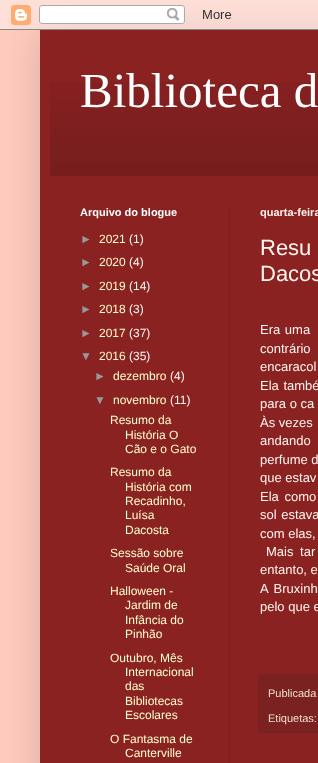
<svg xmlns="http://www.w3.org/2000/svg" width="318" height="763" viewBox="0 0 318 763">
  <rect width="100%" height="100%" fill="#ffcbbe"/>
  <path d="M40 30h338v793H40z" fill="#00000026" filter="blur(20px)"/>
  <image x="0" y="0" width="318" height="30" href="img/1.png"/>
  <path d="M40 30h278v733H40z" fill="#8a2222"/>
  <image x="50" y="82" width="268" height="94" href="img/2.png"/>
  <path d="M229 206h1v557H229z" fill="#7a2222"/>
  <path d="M258 674h60v59H258z" fill="#7a2222"/>
  <text x="80" y="107" font-family="Liberation Serif" font-size="49" fill="#fff">Biblioteca d</text>
  <text x="80" y="216" font-family="Liberation Sans" font-size="11" font-weight="bold" fill="#fff">Arquivo do blogue</text>
  <text x="80" y="243" font-family="Liberation Sans" font-size="12" fill="#999">►</text>
  <text x="99" y="243" font-family="Liberation Sans" font-size="12" fill="#ffc">2021</text>
  <text x="129" y="243" font-family="Liberation Sans" font-size="12" fill="#fff5ee">(1)</text>
  <text x="80" y="266" font-family="Liberation Sans" font-size="12" fill="#999">►</text>
  <text x="99" y="266" font-family="Liberation Sans" font-size="12" fill="#ffc">2020</text>
  <text x="129" y="266" font-family="Liberation Sans" font-size="12" fill="#fff5ee">(4)</text>
  <text x="80" y="290" font-family="Liberation Sans" font-size="12" fill="#999">►</text>
  <text x="99" y="290" font-family="Liberation Sans" font-size="12" fill="#ffc">2019</text>
  <text x="129" y="290" font-family="Liberation Sans" font-size="12" fill="#fff5ee">(14)</text>
  <text x="80" y="313" font-family="Liberation Sans" font-size="12" fill="#999">►</text>
  <text x="99" y="313" font-family="Liberation Sans" font-size="12" fill="#ffc">2018</text>
  <text x="129" y="313" font-family="Liberation Sans" font-size="12" fill="#fff5ee">(3)</text>
  <text x="80" y="337" font-family="Liberation Sans" font-size="12" fill="#999">►</text>
  <text x="99" y="337" font-family="Liberation Sans" font-size="12" fill="#ffc">2017</text>
  <text x="129" y="337" font-family="Liberation Sans" font-size="12" fill="#fff5ee">(37)</text>
  <text x="80" y="360" font-family="Liberation Sans" font-size="12" fill="#999">▼</text>
  <text x="99" y="360" font-family="Liberation Sans" font-size="12" fill="#ffc">2016</text>
  <text x="129" y="360" font-family="Liberation Sans" font-size="12" fill="#fff5ee">(35)</text>
  <text x="94" y="380" font-family="Liberation Sans" font-size="12" fill="#999">►</text>
  <text x="113" y="380" font-family="Liberation Sans" font-size="12" fill="#ffc">dezembro</text>
  <text x="170" y="380" font-family="Liberation Sans" font-size="12" fill="#fff5ee">(4)</text>
  <text x="94" y="404" font-family="Liberation Sans" font-size="12" fill="#999">▼</text>
  <text x="113" y="404" font-family="Liberation Sans" font-size="12" fill="#ffc">novembro</text>
  <text x="170" y="404" font-family="Liberation Sans" font-size="12" fill="#fff5ee">(11)</text>
  <g font-family="Liberation Sans" font-size="12" fill="#ffc">
    <text x="110" y="424">Resumo da</text>
    <text x="125" y="439">História O</text>
    <text x="125" y="453">Cão e o Gato</text>
    <text x="110" y="476">Resumo da</text>
    <text x="125" y="491">História com</text>
    <text x="125" y="505">Recadinho,</text>
    <text x="125" y="519">Luísa</text>
    <text x="125" y="534">Dacosta</text>
    <text x="110" y="557">Sessão sobre</text>
    <text x="125" y="572">Saúde Oral</text>
    <text x="110" y="595">Halloween -</text>
    <text x="125" y="609">Jardim de</text>
    <text x="125" y="624">Infância do</text>
    <text x="125" y="638">Pinhão</text>
    <text x="110" y="662">Outubro, Mês</text>
    <text x="125" y="676">Internacional</text>
    <text x="125" y="690">das</text>
    <text x="125" y="705">Bibliotecas</text>
    <text x="125" y="719">Escolares</text>
    <text x="110" y="743">O Fantasma de</text>
    <text x="125" y="757">Canterville</text>
  </g>
  <text x="260" y="216" font-family="Liberation Sans" font-size="11" font-weight="bold" fill="#fff5ee">quarta-feira</text>
  <g font-family="Liberation Sans" font-size="22" fill="#fff5ee">
    <text x="260" y="255">Resu</text>
    <text x="260" y="281">Dacos</text>
  </g>
  <g font-family="Liberation Sans" font-size="13" fill="#fff5ee">
    <text x="260" y="334" word-spacing="1">Era uma</text>
    <text x="260" y="353" word-spacing="9">contrário</text>
    <text x="260" y="371">encaracol</text>
    <text x="260" y="390" word-spacing="1">Ela també</text>
    <text x="260" y="408">para o ca</text>
    <text x="260" y="427">Às vezes</text>
    <text x="260" y="445" word-spacing="2">andando</text>
    <text x="260" y="464">perfume d</text>
    <text x="260" y="482">que estav</text>
    <text x="260" y="501" word-spacing="2">Ela como</text>
    <text x="260" y="519" word-spacing="1">sol estava</text>
    <text x="260" y="538">com elas,</text>
    <text x="266" y="556" word-spacing="3">Mais tar</text>
    <text x="260" y="574">entanto, e</text>
    <text x="260" y="593" word-spacing="2">A Bruxinh</text>
    <text x="260" y="611">pelo que e</text>
  </g>
  <g font-family="Liberation Sans" font-size="11" fill="#edc">
    <text x="268" y="697">Publicada</text>
    <text x="268" y="722">Etiquetas:</text>
  </g>
</svg>
